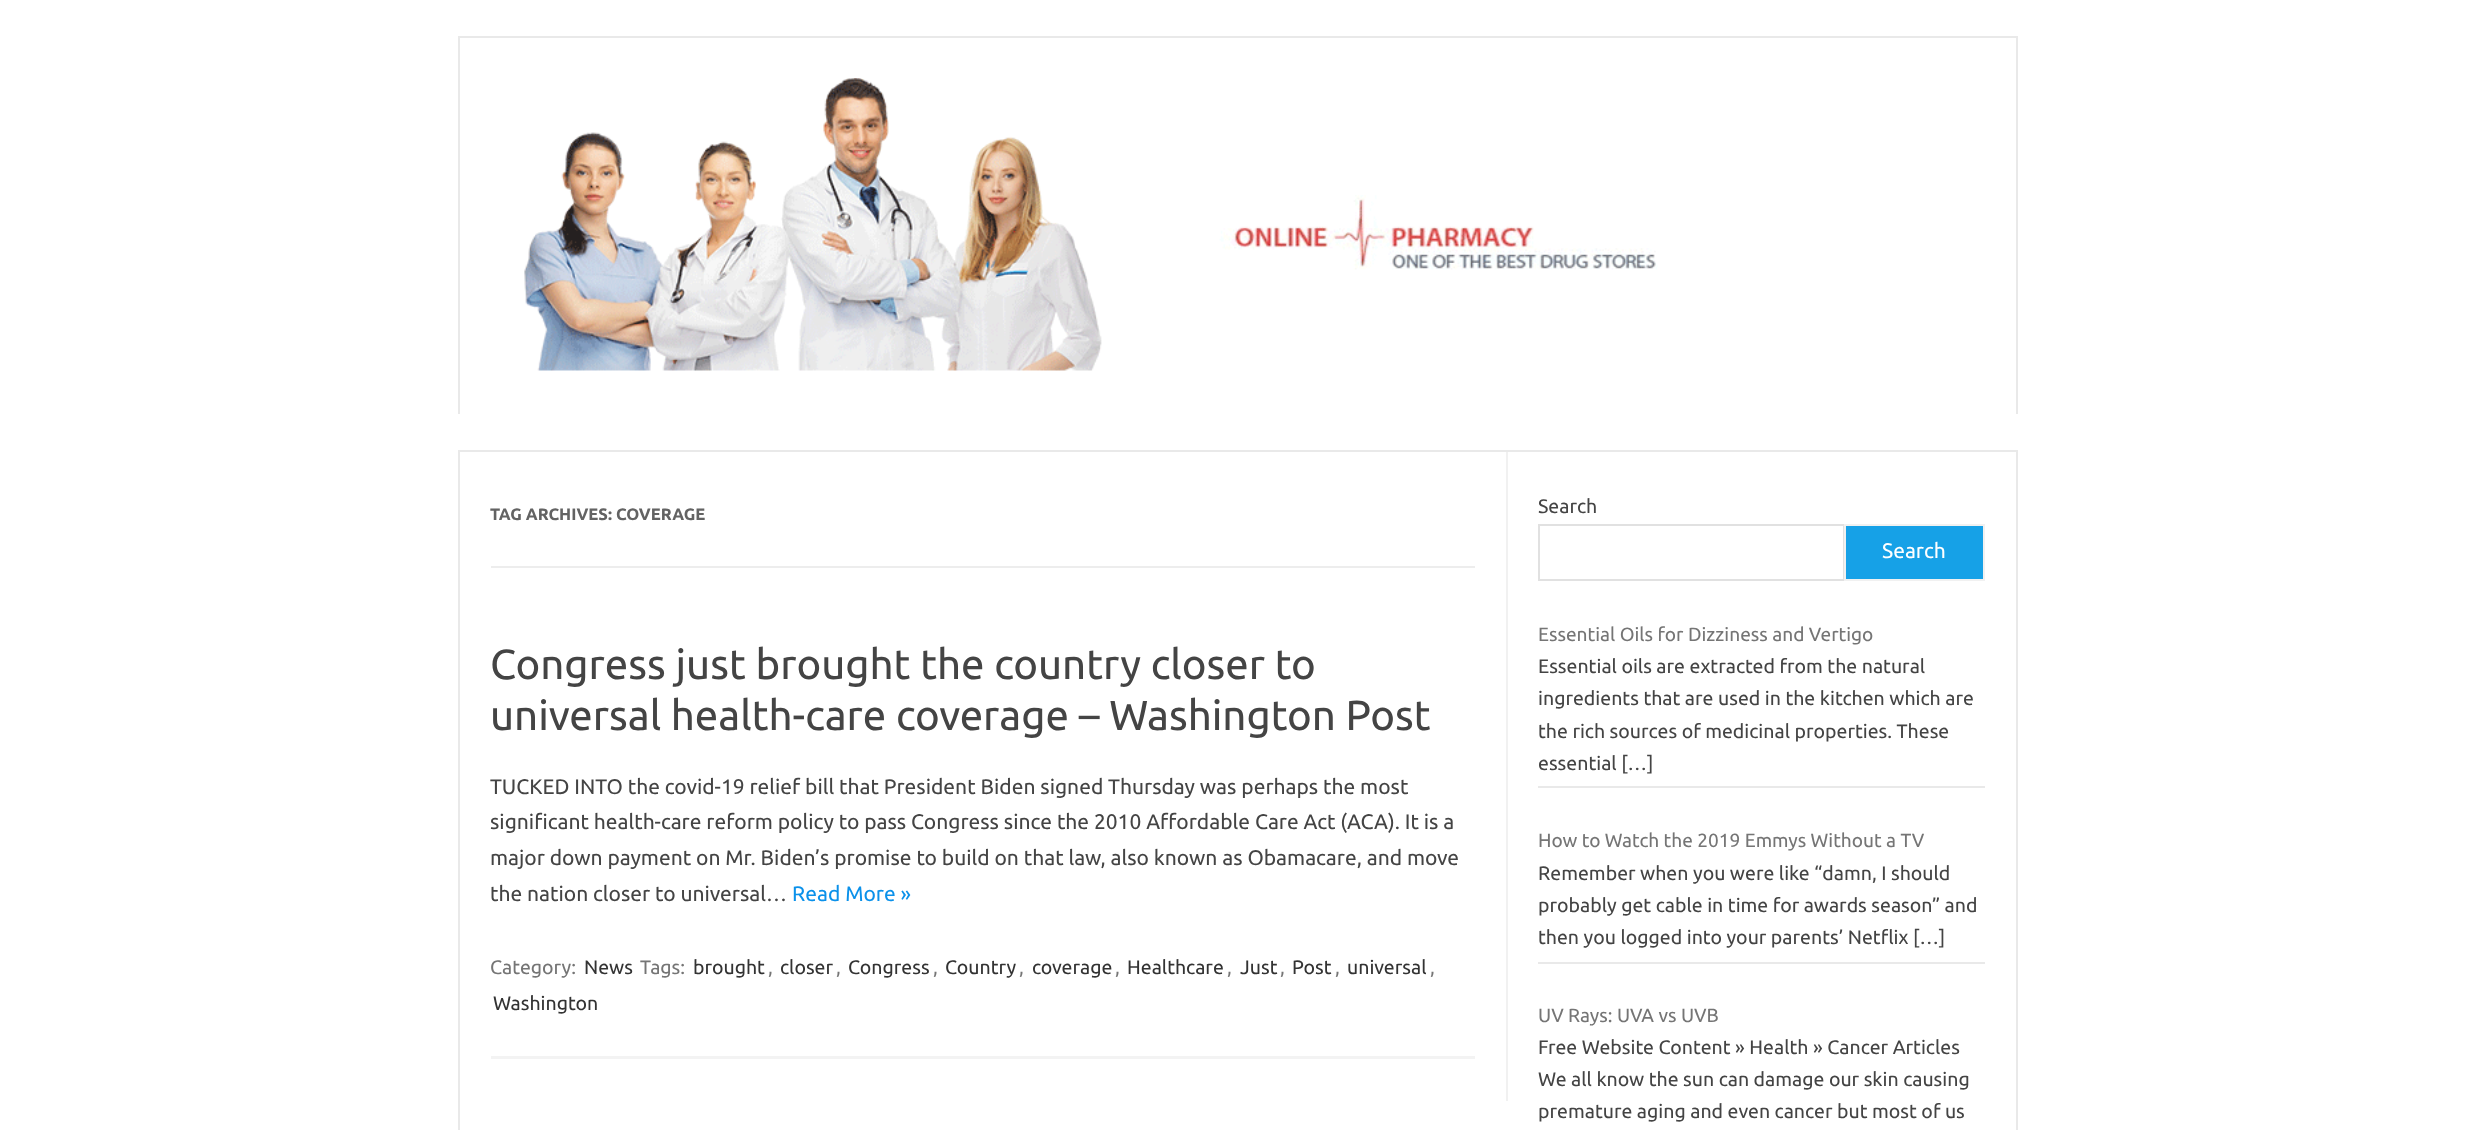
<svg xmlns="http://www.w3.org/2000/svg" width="2474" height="1130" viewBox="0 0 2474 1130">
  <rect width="100%" height="100%" fill="#fff"/>
  <path d="M458 36h1560v2H458z" fill="#e9e9e9"/>
  <path d="M2016 36h2v378H2016z" fill="#e9e9e9"/>
  <path d="M458 36h2v378H458z" fill="#e9e9e9"/>
  <image x="524" y="78" width="1134" height="293" href="img/1.png"/>
  <path d="M459 451h1558v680H459z" fill="none" stroke="#e9e9e9" stroke-width="2"/>
  <path d="M1506 452h2v649H1506z" fill="#f1f1f1"/>
  <path d="M491 566h984v2H491z" fill="#ededed"/>
  <path d="M491 1056h984v3H491z" fill="#f3f3f3"/>
  <path d="M1539 525h305v55H1539z" fill="none" stroke="#e1e1e1" stroke-width="2"/>
  <path d="M1845 525h139v55H1845z" fill="#16a1e7" stroke="#f1f1f1" stroke-width="2"/>
  <path d="M1538 786h447v2H1538z" fill="#e9e9e9"/>
  <path d="M1538 962h447v2H1538z" fill="#e9e9e9"/>
  <text x="490" y="520" font-family="Ubuntu" font-size="16.5" font-weight="bold" fill="#636363">TAG ARCHIVES: COVERAGE</text>
  <g font-family="Ubuntu" font-size="42" fill="#444">
    <text x="490" y="679">Congress just brought the country closer to</text>
    <text x="490" y="730">universal health-care coverage – Washington Post</text>
  </g>
  <g font-family="Ubuntu" font-size="21" fill="#444">
    <text x="490" y="794">TUCKED INTO the covid-19 relief bill that President Biden signed Thursday was perhaps the most</text>
    <text x="490" y="829">significant health-care reform policy to pass Congress since the 2010 Affordable Care Act (ACA). It is a</text>
    <text x="490" y="865">major down payment on Mr. Biden’s promise to build on that law, also known as Obamacare, and move</text>
    <text x="490" y="901">the nation closer to universal…</text>
  </g>
  <text x="792" y="901" font-family="Ubuntu" font-size="21" fill="#0b91ea">Read More »</text>
  <text x="490" y="974" font-family="Ubuntu" font-size="19.5" fill="#757575">Category:</text>
  <text x="584" y="974" font-family="Ubuntu" font-size="19.5" fill="#333">News</text>
  <text x="640" y="974" font-family="Ubuntu" font-size="19.5" fill="#757575">Tags:</text>
  <text x="693" y="974" font-family="Ubuntu" font-size="19.5" fill="#333">brought</text>
  <text x="768" y="974" font-family="Ubuntu" font-size="19.5" fill="#757575">,</text>
  <text x="780" y="974" font-family="Ubuntu" font-size="19.5" fill="#333">closer</text>
  <text x="836" y="974" font-family="Ubuntu" font-size="19.5" fill="#757575">,</text>
  <text x="848" y="974" font-family="Ubuntu" font-size="19.5" fill="#333">Congress</text>
  <text x="933" y="974" font-family="Ubuntu" font-size="19.5" fill="#757575">,</text>
  <text x="945" y="974" font-family="Ubuntu" font-size="19.5" fill="#333">Country</text>
  <text x="1019" y="974" font-family="Ubuntu" font-size="19.5" fill="#757575">,</text>
  <text x="1032" y="974" font-family="Ubuntu" font-size="19.5" fill="#333">coverage</text>
  <text x="1115" y="974" font-family="Ubuntu" font-size="19.5" fill="#757575">,</text>
  <text x="1127" y="974" font-family="Ubuntu" font-size="19.5" fill="#333">Healthcare</text>
  <text x="1227" y="974" font-family="Ubuntu" font-size="19.5" fill="#757575">,</text>
  <text x="1240" y="974" font-family="Ubuntu" font-size="19.5" fill="#333">Just</text>
  <text x="1280" y="974" font-family="Ubuntu" font-size="19.5" fill="#757575">,</text>
  <text x="1292" y="974" font-family="Ubuntu" font-size="19.5" fill="#333">Post</text>
  <text x="1335" y="974" font-family="Ubuntu" font-size="19.5" fill="#757575">,</text>
  <text x="1347" y="974" font-family="Ubuntu" font-size="19.5" fill="#333">universal</text>
  <text x="1430" y="974" font-family="Ubuntu" font-size="19.5" fill="#757575">,</text>
  <text x="493" y="1010" font-family="Ubuntu" font-size="19.5" fill="#333">Washington</text>
  <text x="1538" y="513" font-family="Ubuntu" font-size="19.5" fill="#444">Search</text>
  <text x="1882" y="558" font-family="Ubuntu" font-size="21" fill="#fff">Search</text>
  <text x="1538" y="641" font-family="Ubuntu" font-size="19.1" fill="#757575">Essential Oils for Dizziness and Vertigo</text>
  <g font-family="Ubuntu" font-size="19.5" fill="#444">
    <text x="1538" y="673">Essential oils are extracted from the natural</text>
    <text x="1538" y="705">ingredients that are used in the kitchen which are</text>
    <text x="1538" y="738">the rich sources of medicinal properties. These</text>
    <text x="1538" y="770">essential […]</text>
  </g>
  <text x="1538" y="847" font-family="Ubuntu" font-size="19.1" fill="#757575">How to Watch the 2019 Emmys Without a TV</text>
  <g font-family="Ubuntu" font-size="19.5" fill="#444">
    <text x="1538" y="880">Remember when you were like “damn, I should</text>
    <text x="1538" y="912">probably get cable in time for awards season” and</text>
    <text x="1538" y="944">then you logged into your parents’ Netflix […]</text>
  </g>
  <text x="1538" y="1022" font-family="Ubuntu" font-size="19.1" fill="#757575">UV Rays: UVA vs UVB</text>
  <g font-family="Ubuntu" font-size="19.5" fill="#444">
    <text x="1538" y="1054">Free Website Content » Health » Cancer Articles</text>
    <text x="1538" y="1086">We all know the sun can damage our skin causing</text>
    <text x="1538" y="1118">premature aging and even cancer but most of us</text>
  </g>
</svg>
